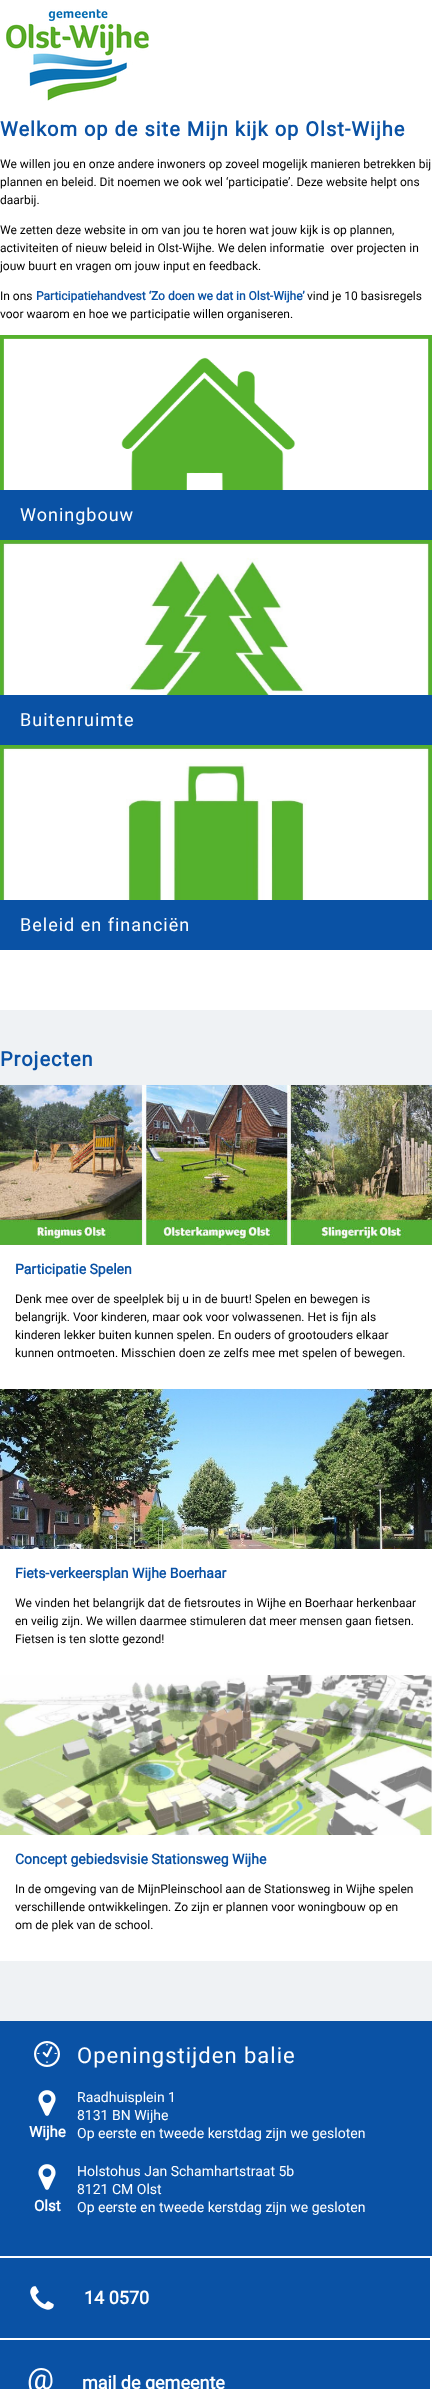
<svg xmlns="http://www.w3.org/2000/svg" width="432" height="2389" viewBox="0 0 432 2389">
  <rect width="100%" height="100%" fill="#fff"/>
  <image x="6" y="9" width="143" height="92" href="img/1.png"/>
  <image x="0" y="335" width="432" height="155" href="img/2.png"/>
  <path d="M0 490h432v50H0z" fill="#0a52a5"/>
  <image x="0" y="540" width="432" height="155" href="img/3.png"/>
  <path d="M0 695h432v50H0z" fill="#0a52a5"/>
  <image x="0" y="745" width="432" height="155" href="img/4.png"/>
  <path d="M0 900h432v50H0z" fill="#0a52a5"/>
  <path d="M0 1010h432v1011H0z" fill="#eff2f4"/>
  <image x="0" y="1085" width="432" height="160" href="img/5.png"/>
  <path d="M0 1245h432v144H0z" fill="#fff"/>
  <image x="0" y="1389" width="432" height="160" href="img/6.png"/>
  <path d="M0 1549h432v126H0z" fill="#fff"/>
  <image x="0" y="1675" width="432" height="160" href="img/7.png"/>
  <path d="M0 1835h432v126H0z" fill="#fff"/>
  <path d="M0 2021h432v368H0z" fill="#0a52a5"/>
  <path d="M0 2256h432v2H0z" fill="#fff"/>
  <image x="34" y="2041" width="26" height="26" href="img/8.png"/>
  <image x="38" y="2090" width="18" height="26" href="img/9.png"/>
  <image x="38" y="2164" width="18" height="26" href="img/9.png"/>
  <path d="M430 2258h2v131H430z" fill="#fff"/>
  <path d="M0 2338h430v2H0z" fill="#fff"/>
  <image x="30" y="2286" width="24" height="24" href="img/10.png"/>
  <text x="0" y="136" font-family="Roboto" font-size="20" font-weight="bold" letter-spacing="1" fill="#0a52a5">Welkom op de site Mijn kijk op Olst-Wijhe</text>
  <g font-family="Roboto" font-size="12" fill="#000">
    <text x="0" y="168">We willen jou en onze andere inwoners op zoveel mogelijk manieren betrekken bij</text>
    <text x="0" y="186">plannen en beleid. Dit noemen we ook wel ‘participatie’. Deze website helpt ons</text>
    <text x="0" y="204">daarbij.</text>
    <text x="0" y="234">We zetten deze website in om van jou te horen wat jouw kijk is op plannen,</text>
    <text x="0" y="252" xml:space="preserve">activiteiten of nieuw beleid in Olst-Wijhe. We delen informatie  over projecten in</text>
    <text x="0" y="270">jouw buurt en vragen om jouw input en feedback.</text>
    <text x="0" y="300">In ons</text>
  </g>
  <text x="36" y="300" font-family="Roboto" font-size="12" font-weight="bold" fill="#0a52a5">Participatiehandvest ‘Zo doen we dat in Olst-Wijhe’</text>
  <g font-family="Roboto" font-size="12" fill="#000">
    <text x="307" y="300">vind je 10 basisregels</text>
    <text x="0" y="318">voor waarom en hoe we participatie willen organiseren.</text>
  </g>
  <g font-family="Roboto" font-size="18" letter-spacing="1" fill="#fff">
    <text x="20" y="521">Woningbouw</text>
    <text x="20" y="726">Buitenruimte</text>
    <text x="20" y="931">Beleid en financiën</text>
  </g>
  <text x="0" y="1066" font-family="Roboto" font-size="20" font-weight="bold" letter-spacing="1" fill="#0a52a5">Projecten</text>
  <text x="15" y="1274" font-family="Roboto" font-size="14" font-weight="bold" fill="#0a52a5">Participatie Spelen</text>
  <g font-family="Roboto" font-size="12" fill="#000">
    <text x="15" y="1303">Denk mee over de speelplek bij u in de buurt! Spelen en bewegen is</text>
    <text x="15" y="1321">belangrijk. Voor kinderen, maar ook voor volwassenen. Het is fijn als</text>
    <text x="15" y="1339">kinderen lekker buiten kunnen spelen. En ouders of grootouders elkaar</text>
    <text x="15" y="1357">kunnen ontmoeten. Misschien doen ze zelfs mee met spelen of bewegen.</text>
  </g>
  <text x="15" y="1578" font-family="Roboto" font-size="14" font-weight="bold" fill="#0a52a5">Fiets-verkeersplan Wijhe Boerhaar</text>
  <g font-family="Roboto" font-size="12" fill="#000">
    <text x="15" y="1607">We vinden het belangrijk dat de fietsroutes in Wijhe en Boerhaar herkenbaar</text>
    <text x="15" y="1625">en veilig zijn. We willen daarmee stimuleren dat meer mensen gaan fietsen.</text>
    <text x="15" y="1643">Fietsen is ten slotte gezond!</text>
  </g>
  <text x="15" y="1864" font-family="Roboto" font-size="14" font-weight="bold" fill="#0a52a5">Concept gebiedsvisie Stationsweg Wijhe</text>
  <g font-family="Roboto" font-size="12" fill="#000">
    <text x="15" y="1893">In de omgeving van de MijnPleinschool aan de Stationsweg in Wijhe spelen</text>
    <text x="15" y="1911">verschillende ontwikkelingen. Zo zijn er plannen voor woningbouw op en</text>
    <text x="15" y="1929">om de plek van de school.</text>
  </g>
  <text x="77" y="2063" font-family="Roboto" font-size="22" letter-spacing="1" fill="#fff">Openingstijden balie</text>
  <text x="29" y="2137" font-family="Roboto" font-size="15" font-weight="bold" fill="#fff">Wijhe</text>
  <g font-family="Roboto" font-size="14" fill="#fff">
    <text x="77" y="2102">Raadhuisplein 1</text>
    <text x="77" y="2120">8131 BN Wijhe</text>
    <text x="77" y="2138">Op eerste en tweede kerstdag zijn we gesloten</text>
  </g>
  <text x="34" y="2211" font-family="Roboto" font-size="15" font-weight="bold" fill="#fff">Olst</text>
  <g font-family="Roboto" font-size="14" fill="#fff">
    <text x="77" y="2176">Holstohus Jan Schamhartstraat 5b</text>
    <text x="77" y="2194">8121 CM Olst</text>
    <text x="77" y="2212">Op eerste en tweede kerstdag zijn we gesloten</text>
  </g>
  <text x="84" y="2304" font-family="Roboto" font-size="18" font-weight="bold" fill="#fff">14 0570</text>
  <text x="27" y="2389" font-family="Roboto" font-size="30" letter-spacing="1" fill="#fff">@</text>
  <text x="82" y="2389" font-family="Roboto" font-size="18" font-weight="bold" fill="#fff">mail de gemeente</text>
</svg>
